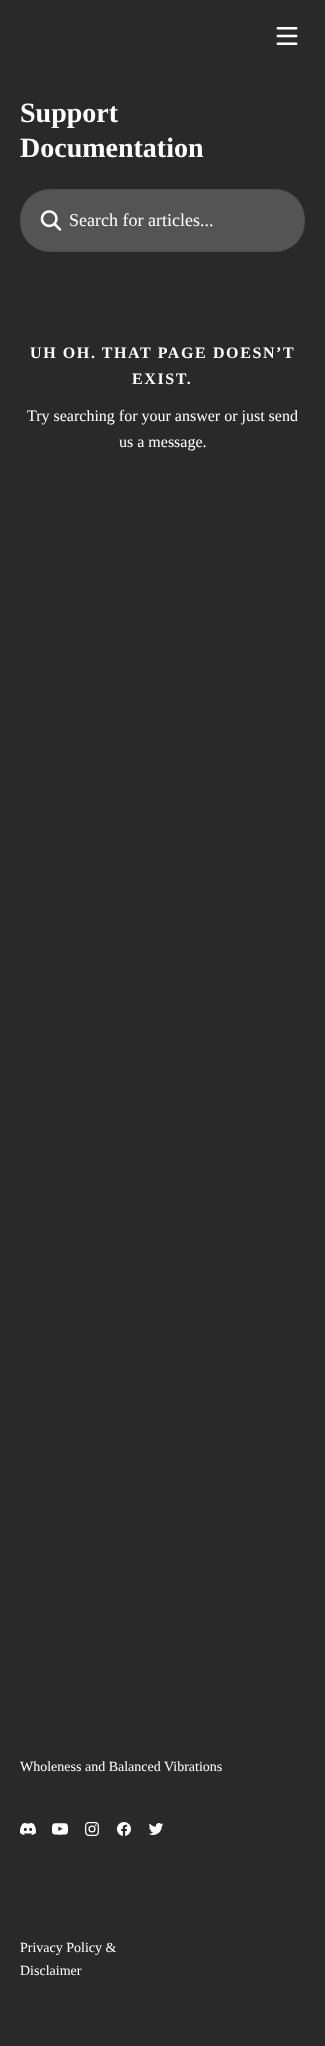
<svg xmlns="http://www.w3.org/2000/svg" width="325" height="2046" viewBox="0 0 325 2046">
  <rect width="100%" height="100%" fill="#292929"/>
  <image x="276" y="27" width="22" height="18" href="img/1.png"/>
  <rect x="20" y="189" width="285" height="63" rx="30" fill="#545454"/>
  <rect x="20.5" y="189.5" width="284" height="62" rx="29.5" fill="none" stroke="#00000014"/>
  <image x="40" y="210" width="22" height="21" href="img/2.png"/>
  <image x="20" y="1822" width="16" height="13" href="img/3.png"/>
  <image x="52" y="1823" width="16" height="12" href="img/4.png"/>
  <image x="85" y="1822" width="14" height="14" href="img/5.png"/>
  <image x="117" y="1822" width="14" height="14" href="img/6.png"/>
  <image x="148" y="1823" width="16" height="12" href="img/7.png"/>
  <g font-family="Liberation Serif" font-size="28" font-weight="bold" fill="#fff">
    <text x="20" y="122">Support</text>
    <text x="20" y="157">Documentation</text>
  </g>
  <text x="69" y="226" font-family="Liberation Serif" font-size="18" fill="#fff">Search for articles...</text>
  <g font-family="Liberation Serif" font-size="16" font-weight="bold" letter-spacing="1.6" fill="#fff">
    <text x="30" y="358">UH OH. THAT PAGE DOESN’T</text>
    <text x="132" y="384">EXIST.</text>
  </g>
  <g font-family="Liberation Serif" font-size="16" fill="#fff">
    <text x="27" y="421">Try searching for your answer or just send</text>
    <text x="119" y="447">us a message.</text>
  </g>
  <g font-family="Liberation Serif" font-size="14" fill="#fff">
    <text x="20" y="1771">Wholeness and Balanced Vibrations</text>
    <text x="20" y="1952">Privacy Policy &amp;</text>
    <text x="20" y="1975">Disclaimer</text>
  </g>
</svg>
